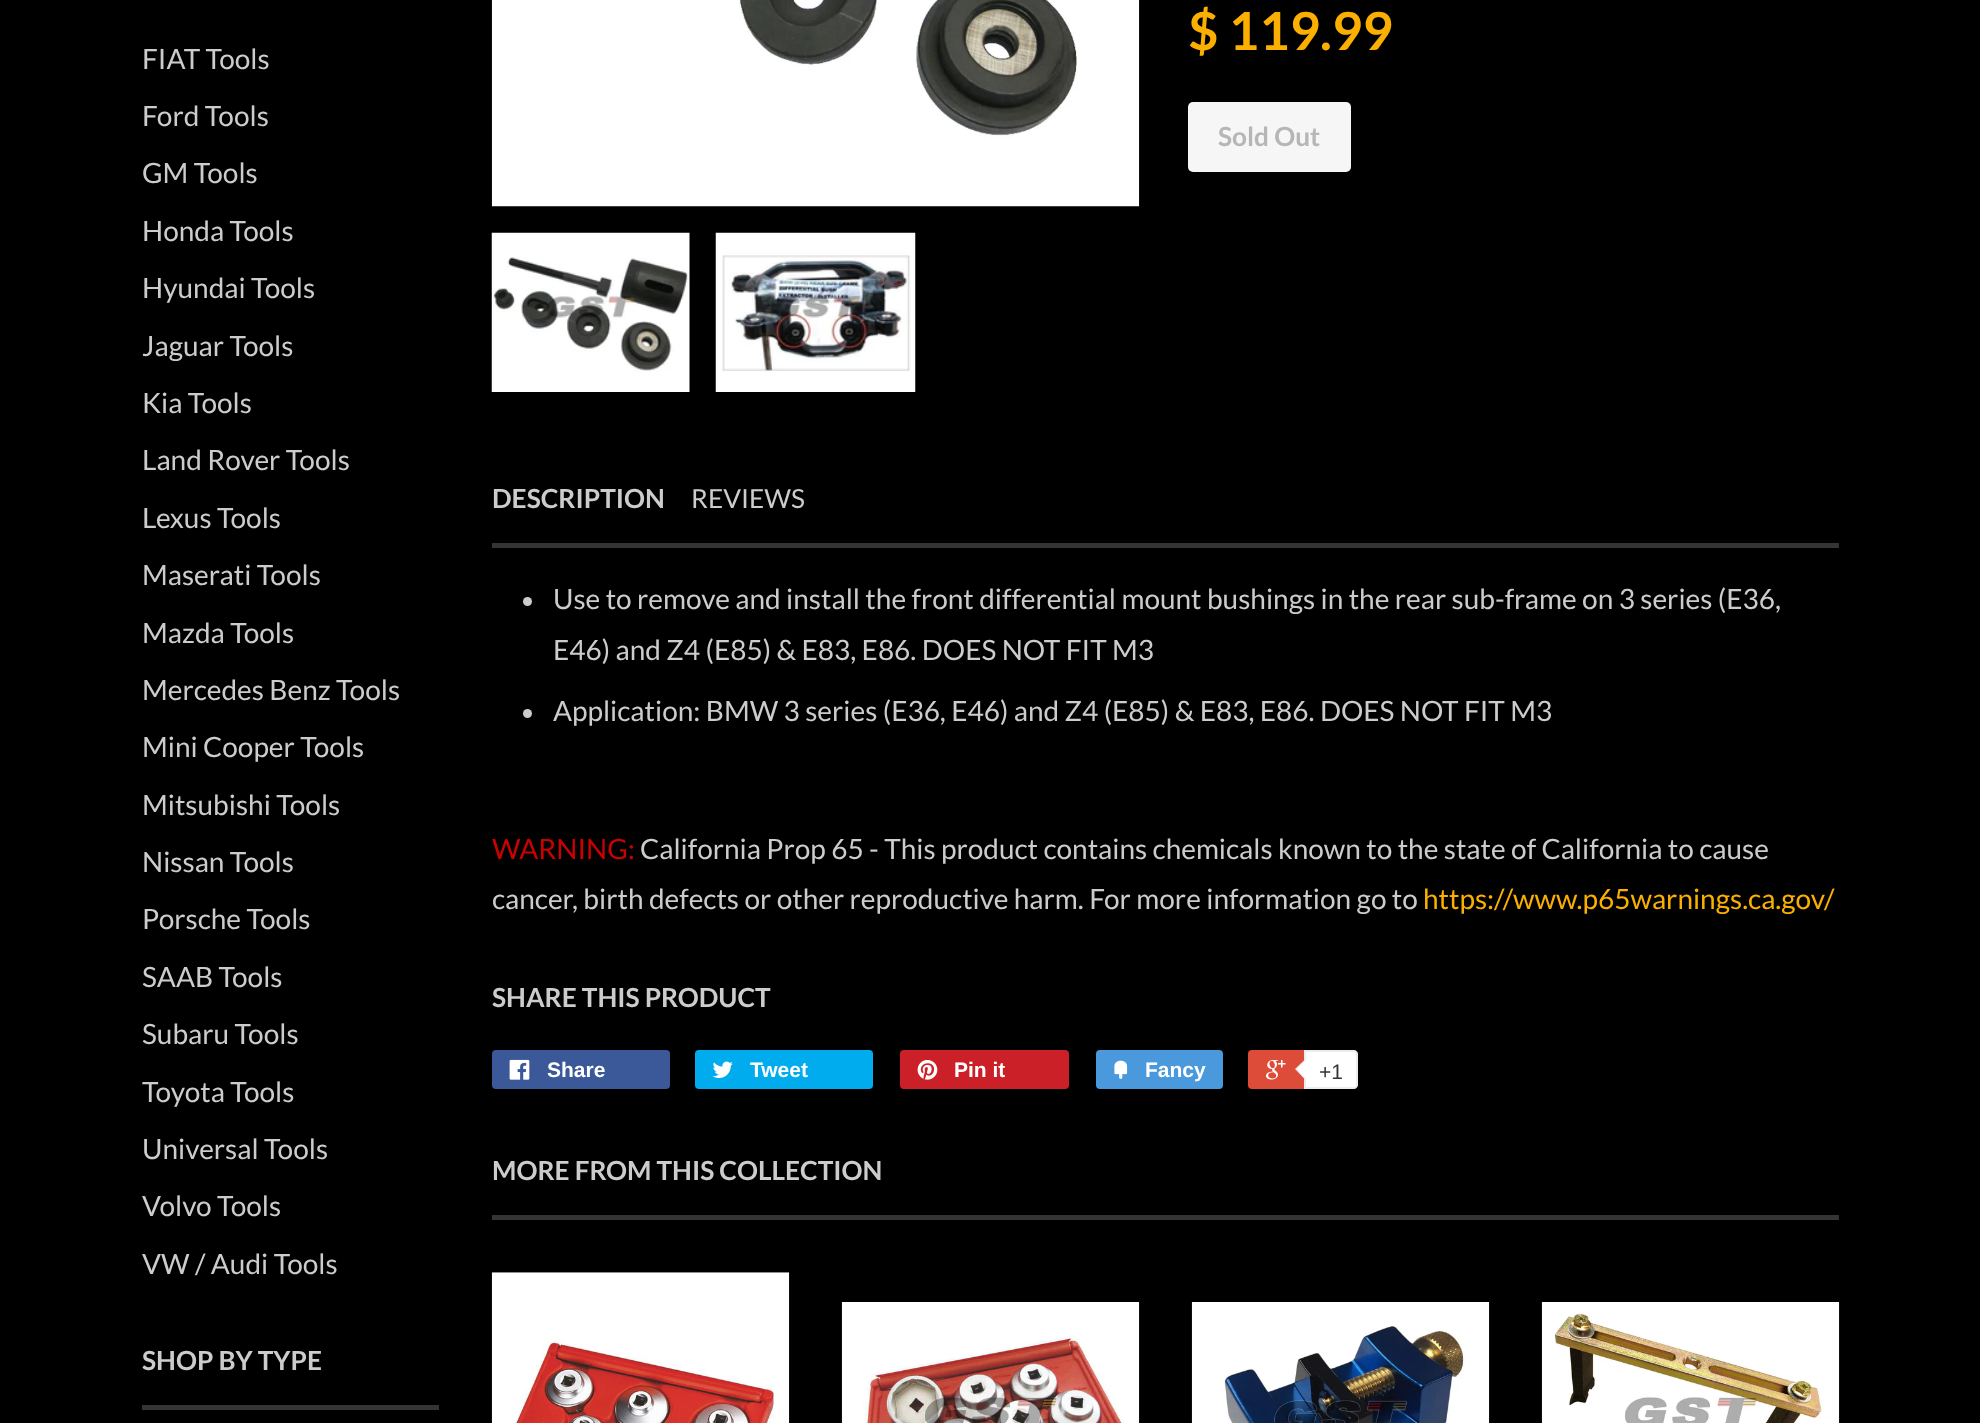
<svg xmlns="http://www.w3.org/2000/svg" width="1980" height="1423" viewBox="0 0 1980 1423">
  <rect width="100%" height="100%" fill="#000"/>
  <path d="M142 1405h297v5H142z" fill="#343434"/>
  <image x="491" y="0" width="649" height="207" href="img/1.png"/>
  <rect x="1188" y="102" width="163" height="70" rx="5" fill="#f6f6f6"/>
  <image x="491" y="232" width="199" height="160" href="img/2.png"/>
  <image x="715" y="232" width="201" height="160" href="img/3.png"/>
  <path d="M492 543h1347v5H492z" fill="#343434"/>
  <circle cx="527.5" cy="601.5" r="4.5" fill="#ccc"/>
  <circle cx="527.5" cy="713.5" r="4.5" fill="#ccc"/>
  <rect x="492" y="1050" width="178" height="39" rx="4" fill="#3b5998"/>
  <image x="509" y="1059" width="21" height="21" href="img/4.png"/>
  <rect x="695" y="1050" width="178" height="39" rx="4" fill="#00aced"/>
  <image x="712" y="1061" width="21" height="17" href="img/5.png"/>
  <rect x="900" y="1050" width="169" height="39" rx="4" fill="#cb2027"/>
  <image x="917" y="1060" width="21" height="20" href="img/6.png"/>
  <rect x="1096" y="1050" width="127" height="39" rx="4" fill="#4999dc"/>
  <image x="1114" y="1060" width="14" height="19" href="img/7.png"/>
  <rect x="1248" y="1050" width="107" height="39" rx="4" fill="#dd4b39"/>
  <image x="1266" y="1060" width="20" height="20" href="img/8.png"/>
  <path d="M1305 1051H1354C1355.5 1051 1357 1052.5 1357 1054V1085C1357 1086.5 1355.5 1088 1354 1088H1305Z" fill="#fff" stroke="#ececec" stroke-width="2"/>
  <path d="M1305.5 1059V1080L1295 1069Z" fill="#ececec"/>
  <path d="M1307 1059V1080L1297 1069Z" fill="#fff"/>
  <path d="M492 1215h1347v5H492z" fill="#343434"/>
  <image x="491" y="1272" width="299" height="151" href="img/9.png"/>
  <image x="841" y="1302" width="299" height="121" href="img/10.png"/>
  <image x="1191" y="1302" width="299" height="121" href="img/11.png"/>
  <image x="1541" y="1302" width="299" height="121" href="img/12.png"/>
  <g font-family="Lato" font-size="28" fill="#ccc">
    <text x="142" y="69">FIAT Tools</text>
    <text x="142" y="126">Ford Tools</text>
    <text x="142" y="183">GM Tools</text>
    <text x="142" y="241">Honda Tools</text>
    <text x="142" y="298">Hyundai Tools</text>
    <text x="142" y="356">Jaguar Tools</text>
    <text x="142" y="413">Kia Tools</text>
    <text x="142" y="470">Land Rover Tools</text>
    <text x="142" y="528">Lexus Tools</text>
    <text x="142" y="585">Maserati Tools</text>
    <text x="142" y="643">Mazda Tools</text>
    <text x="142" y="700">Mercedes Benz Tools</text>
    <text x="142" y="757">Mini Cooper Tools</text>
    <text x="142" y="815">Mitsubishi Tools</text>
    <text x="142" y="872">Nissan Tools</text>
    <text x="142" y="929">Porsche Tools</text>
    <text x="142" y="987">SAAB Tools</text>
    <text x="142" y="1044">Subaru Tools</text>
    <text x="142" y="1102">Toyota Tools</text>
    <text x="142" y="1159">Universal Tools</text>
    <text x="142" y="1216">Volvo Tools</text>
    <text x="142" y="1274">VW / Audi Tools</text>
  </g>
  <text x="142" y="1370" font-family="Lato" font-size="26.25" font-weight="bold" fill="#ccc">SHOP BY TYPE</text>
  <text x="1188" y="50" font-family="Lato" font-size="52.5" font-weight="bold" fill="#fbaf00">$ 119.99</text>
  <text x="1218" y="146" font-family="Lato" font-size="26.25" font-weight="bold" fill="#b6b6b6">Sold Out</text>
  <text x="492" y="508" font-family="Lato" font-size="26.25" font-weight="bold" fill="#ccc">DESCRIPTION</text>
  <text x="691" y="508" font-family="Lato" font-size="26.25" fill="#ccc">REVIEWS</text>
  <g font-family="Lato" font-size="28" fill="#ccc">
    <text x="553" y="609">Use to remove and install the front differential mount bushings in the rear sub-frame on 3 series (E36,</text>
    <text x="553" y="660">E46) and Z4 (E85) &amp; E83, E86. DOES NOT FIT M3</text>
    <text x="553" y="721">Application: BMW 3 series (E36, E46) and Z4 (E85) &amp; E83, E86. DOES NOT FIT M3</text>
  </g>
  <text x="492" y="859" font-family="Lato" font-size="28" fill="#c00">WARNING:</text>
  <g font-family="Lato" font-size="28" fill="#ccc">
    <text x="640" y="859">California Prop 65 - This product contains chemicals known to the state of California to cause</text>
    <text x="492" y="909">cancer, birth defects or other reproductive harm. For more information go to</text>
  </g>
  <text x="1423" y="909" font-family="Lato" font-size="28" fill="#fbaf00">https://www.p65warnings.ca.gov/</text>
  <text x="492" y="1007" font-family="Lato" font-size="26.25" font-weight="bold" fill="#ccc">SHARE THIS PRODUCT</text>
  <g font-family="Liberation Sans" font-size="21" font-weight="bold" fill="#fff">
    <text x="547" y="1077">Share</text>
    <text x="750" y="1077">Tweet</text>
    <text x="954" y="1077">Pin it</text>
    <text x="1145" y="1077">Fancy</text>
  </g>
  <text x="1319" y="1079" font-family="Liberation Sans" font-size="21" fill="#333">+1</text>
  <text x="492" y="1180" font-family="Lato" font-size="26.25" font-weight="bold" fill="#ccc">MORE FROM THIS COLLECTION</text>
</svg>
